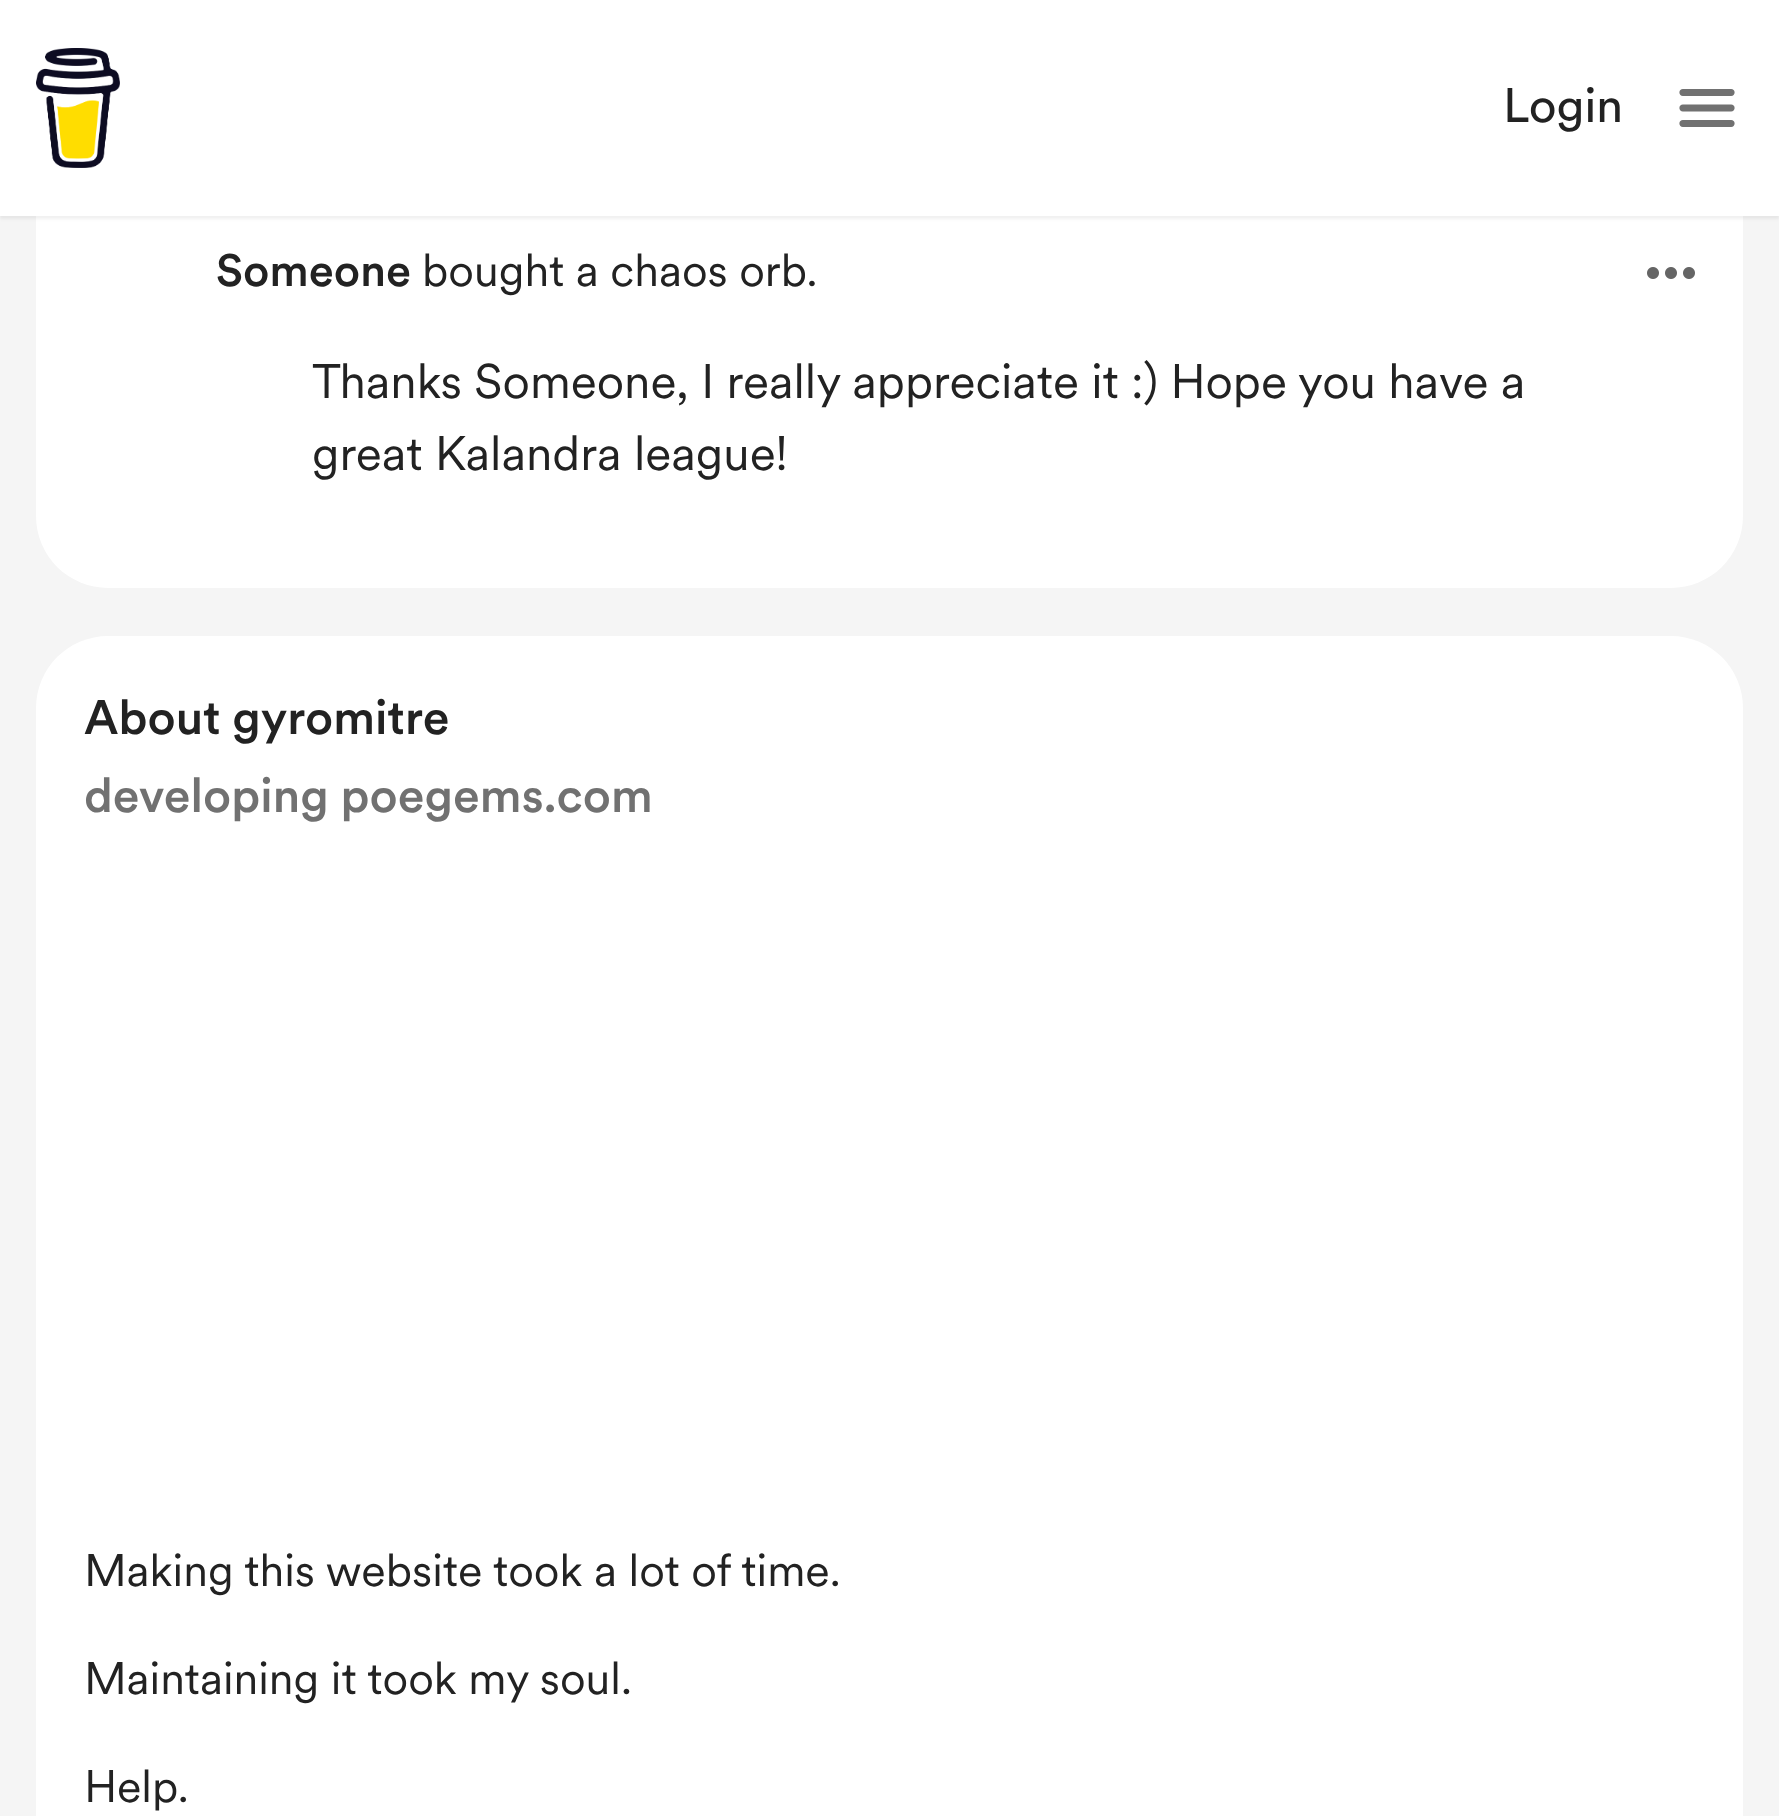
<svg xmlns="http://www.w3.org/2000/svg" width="1779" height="1816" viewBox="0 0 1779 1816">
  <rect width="100%" height="100%" fill="#f5f5f5"/>
  <rect x="36" y="-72" width="1707" height="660" rx="72" fill="#fff"/>
  <path d="M0 3h1779v216H0z" fill="#0000000f" filter="blur(1.5px)"/>
  <path d="M0 0h1779v216H0z" fill="#fff"/>
  <image x="36" y="48" width="84" height="120" href="img/1.png"/>
  <image x="1679" y="89" width="56" height="38" href="img/2.png"/>
  <image x="1647" y="267" width="48" height="12" href="img/3.png"/>
  <rect x="36" y="636" width="1707" height="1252" rx="72" fill="#fff"/>
  <text x="1503" y="122" font-family="'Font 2'" font-size="48" fill="#222">Login</text>
  <text x="216" y="286" font-family="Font" font-size="45" font-weight="500" fill="#222">Someone</text>
  <text x="422" y="286" font-family="Font" font-size="45" fill="#222">bought a chaos orb.</text>
  <g font-family="Font" font-size="48" fill="#222">
    <text x="312" y="398">Thanks Someone, I really appreciate it :) Hope you have a</text>
    <text x="312" y="470">great Kalandra league!</text>
  </g>
  <text x="84" y="734" font-family="Font" font-size="48" font-weight="500" fill="#222">About gyromitre</text>
  <text x="84" y="812" font-family="Font" font-size="48" font-weight="500" fill="#717171">developing poegems.com</text>
  <g font-family="Font" font-size="45" fill="#222">
    <text x="84" y="1586">Making this website took a lot of time.</text>
    <text x="84" y="1694">Maintaining it took my soul.</text>
    <text x="84" y="1802">Help.</text>
  </g>
</svg>
